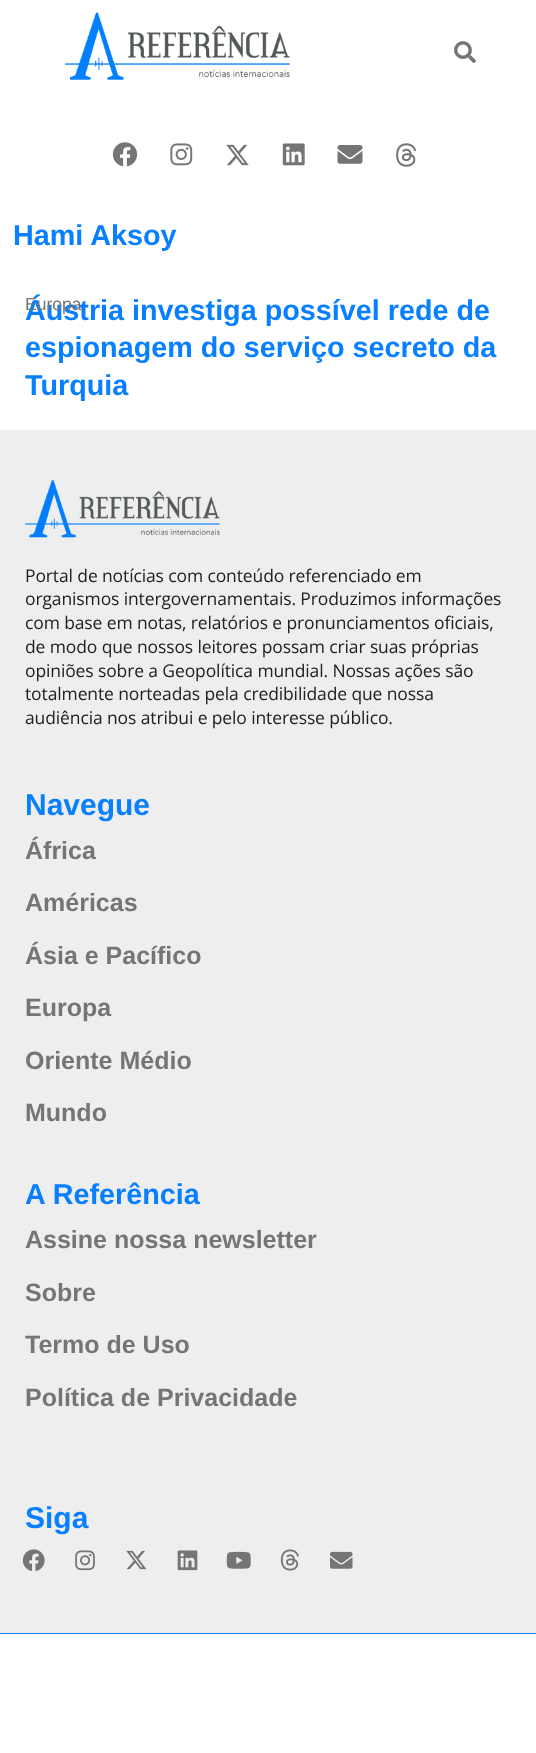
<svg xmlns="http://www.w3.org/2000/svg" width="536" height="1753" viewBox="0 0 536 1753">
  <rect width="100%" height="100%" fill="#fff"/>
  <image x="65" y="12" width="225" height="68" href="img/1.png"/>
  <image x="454" y="41" width="22" height="22" href="img/2.png"/>
  <image x="112" y="142" width="26" height="25" href="img/3.png"/>
  <image x="170" y="143" width="23" height="23" href="img/4.png"/>
  <image x="226" y="144" width="23" height="22" href="img/5.png"/>
  <image x="282" y="143" width="23" height="23" href="img/6.png"/>
  <image x="337" y="145" width="26" height="19" href="img/7.png"/>
  <image x="396" y="143" width="21" height="24" href="img/8.png"/>
  <path d="M0 430h536v1203H0z" fill="#eee"/>
  <image x="25" y="480" width="195" height="58" href="img/9.png"/>
  <image x="22" y="1549" width="23" height="22" href="img/10.png"/>
  <image x="75" y="1550" width="20" height="21" href="img/11.png"/>
  <image x="126" y="1550" width="21" height="20" href="img/12.png"/>
  <image x="177" y="1550" width="21" height="21" href="img/13.png"/>
  <image x="226" y="1551" width="25" height="18" href="img/14.png"/>
  <image x="280" y="1549" width="19" height="22" href="img/15.png"/>
  <image x="330" y="1551" width="23" height="18" href="img/16.png"/>
  <path d="M0 1633h536v1H0z" fill="#077fff"/>
  <g font-family="Liberation Sans" font-size="28.75" font-weight="bold" fill="#077fff">
    <text x="13" y="245">Hami Aksoy</text>
    <text x="25" y="320">Áustria investiga possível rede de</text>
    <text x="25" y="357">espionagem do serviço secreto da</text>
    <text x="25" y="395">Turquia</text>
  </g>
  <text x="25" y="310" font-family="Liberation Sans" font-size="17.5" fill="#757575">Europa</text>
  <g font-family="Open Sans" font-size="17.5" letter-spacing="-0.12" fill="#212121">
    <text x="25" y="582">Portal de notícias com conteúdo referenciado em</text>
    <text x="25" y="605">organismos intergovernamentais. Produzimos informações</text>
    <text x="25" y="629">com base em notas, relatórios e pronunciamentos oficiais,</text>
    <text x="25" y="653">de modo que nossos leitores possam criar suas próprias</text>
    <text x="25" y="677">opiniões sobre a Geopolítica mundial. Nossas ações são</text>
    <text x="25" y="700">totalmente norteadas pela credibilidade que nossa</text>
    <text x="25" y="724">audiência nos atribui e pelo interesse público.</text>
  </g>
  <text x="25" y="815" font-family="Liberation Sans" font-size="30" font-weight="bold" fill="#077fff">Navegue</text>
  <g font-family="Liberation Sans" font-size="25" font-weight="bold" fill="#757575">
    <text x="25" y="859">África</text>
    <text x="25" y="911">Américas</text>
    <text x="25" y="964">Ásia e Pacífico</text>
    <text x="25" y="1016">Europa</text>
    <text x="25" y="1069">Oriente Médio</text>
    <text x="25" y="1121">Mundo</text>
  </g>
  <text x="25" y="1204" font-family="Liberation Sans" font-size="28.75" font-weight="bold" fill="#077fff">A Referência</text>
  <g font-family="Liberation Sans" font-size="25" font-weight="bold" fill="#757575">
    <text x="25" y="1248">Assine nossa newsletter</text>
    <text x="25" y="1301">Sobre</text>
    <text x="25" y="1353">Termo de Uso</text>
    <text x="25" y="1406">Política de Privacidade</text>
  </g>
  <text x="25" y="1528" font-family="Liberation Sans" font-size="30" font-weight="bold" fill="#077fff">Siga</text>
</svg>
